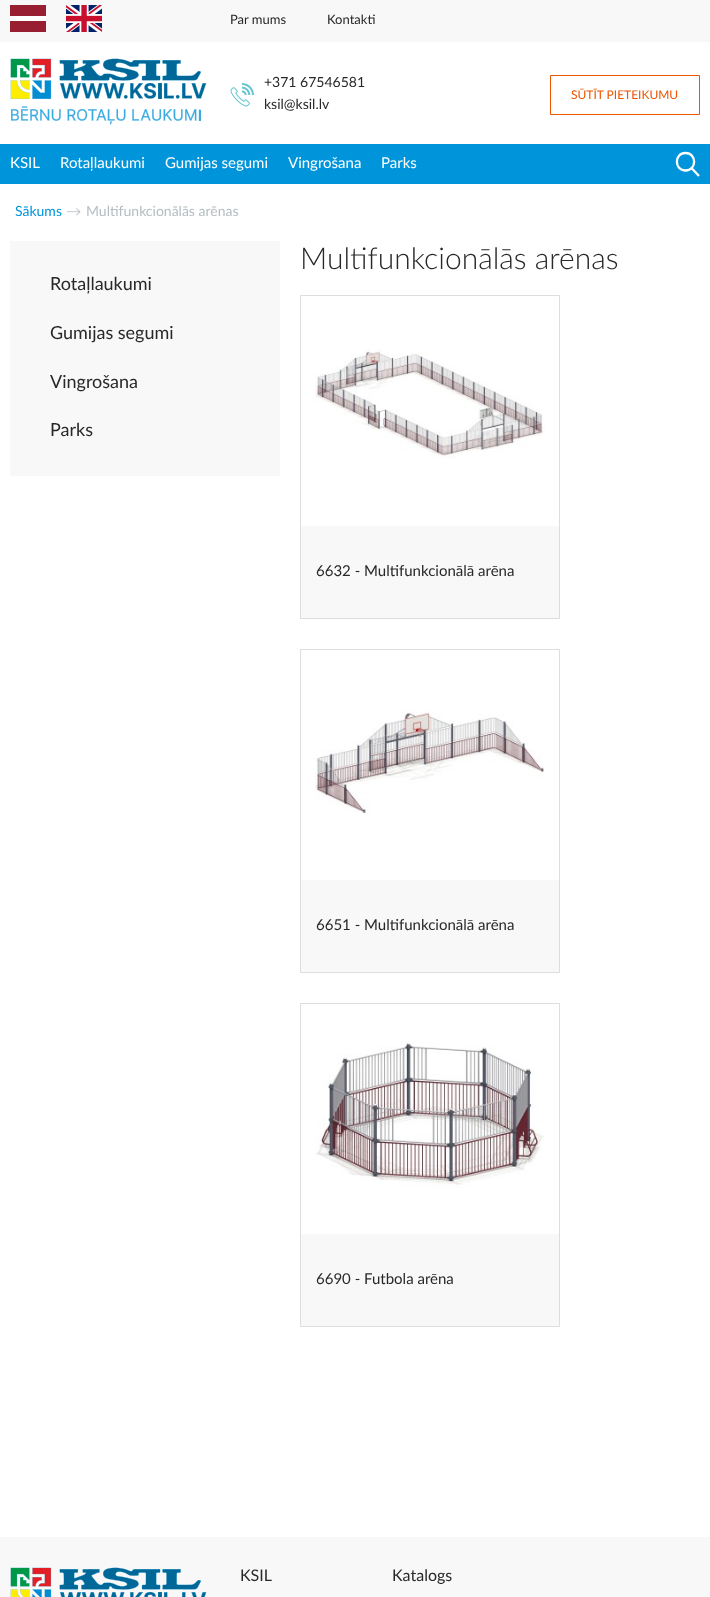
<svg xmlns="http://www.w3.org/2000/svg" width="710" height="1597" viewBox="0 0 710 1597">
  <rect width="100%" height="100%" fill="#fff"/>
  <path d="M0 0h710v42H0z" fill="#f8f8f8"/>
  <path d="M10 16h36v5H10z" fill="#fff"/>
  <path d="M10 5H46V16H10ZM10 21H46V32H10Z" fill="#981e32" fill-rule="evenodd"/>
  <image x="66" y="5" width="36" height="27" href="img/1.png"/>
  <image x="10" y="58" width="197" height="67" href="img/2.png"/>
  <image x="230" y="83" width="24" height="24" href="img/3.png"/>
  <path d="M550.5 75.5h149v39H550.5z" fill="none" stroke="#ec5400"/>
  <path d="M0 144h710v40H0z" fill="#0095da"/>
  <path d="M685.5 170.5C697 170.5 697 153 685.5 153C674 153 674 170.5 685.5 170.5ZM691.5 168L699 176" fill="none" stroke="#fff" stroke-width="2.3"/>
  <image x="67" y="208" width="14" height="8" href="img/4.png"/>
  <path d="M10 241h270v235H10z" fill="#f8f8f8"/>
  <path d="M300.5 295.5h259v323H300.5z" fill="none" stroke="#ddd"/>
  <image x="315" y="349" width="230" height="110" href="img/5.png"/>
  <path d="M301 526h258v92H301z" fill="#f8f8f8"/>
  <path d="M300.5 649.5h259v323H300.5z" fill="none" stroke="#ddd"/>
  <image x="315" y="710" width="229" height="103" href="img/6.png"/>
  <path d="M301 880h258v92H301z" fill="#f8f8f8"/>
  <path d="M300.5 1003.5h259v323H300.5z" fill="none" stroke="#ddd"/>
  <image x="315" y="1041" width="229" height="147" href="img/7.png"/>
  <path d="M301 1234h258v92H301z" fill="#f8f8f8"/>
  <path d="M0 1537h710v60H0z" fill="#f8f8f8"/>
  <image x="10" y="1567" width="197" height="30" href="img/8.png"/>
  <g font-family="Lato" font-size="13" fill="#282828">
    <text x="230" y="24">Par mums</text>
    <text x="327" y="24">Kontakti</text>
  </g>
  <g font-family="Lato" font-size="14" fill="#282828">
    <text x="264" y="87">+371 67546581</text>
    <text x="264" y="109">ksil@ksil.lv</text>
  </g>
  <text x="571" y="99" font-family="Lato" font-size="12" fill="#ec5400">SŪTĪT PIETEIKUMU</text>
  <g font-family="Lato" font-size="15" fill="#fff">
    <text x="10" y="168">KSIL</text>
    <text x="60" y="168">Rotaļlaukumi</text>
    <text x="165" y="168">Gumijas segumi</text>
    <text x="288" y="168">Vingrošana</text>
    <text x="381" y="168">Parks</text>
  </g>
  <text x="15" y="216" font-family="Lato" font-size="14" fill="#0095da">Sākums</text>
  <text x="86" y="216" font-family="Lato" font-size="14" fill="#b5bdc2">Multifunkcionālās arēnas</text>
  <g font-family="Lato" font-size="18" fill="#282828">
    <text x="50" y="290">Rotaļlaukumi</text>
    <text x="50" y="339">Gumijas segumi</text>
    <text x="50" y="388">Vingrošana</text>
    <text x="50" y="436">Parks</text>
  </g>
  <text x="300" y="269" font-family="Lato" font-size="30" font-weight="300" fill="#282828">Multifunkcionālās arēnas</text>
  <g font-family="Lato" font-size="15" fill="#282828">
    <text x="316" y="576">6632 - Multifunkcionālā arēna</text>
    <text x="316" y="930">6651 - Multifunkcionālā arēna</text>
    <text x="316" y="1284">6690 - Futbola arēna</text>
  </g>
  <g font-family="Lato" font-size="16" fill="#282828">
    <text x="240" y="1581">KSIL</text>
    <text x="392" y="1581">Katalogs</text>
  </g>
</svg>
